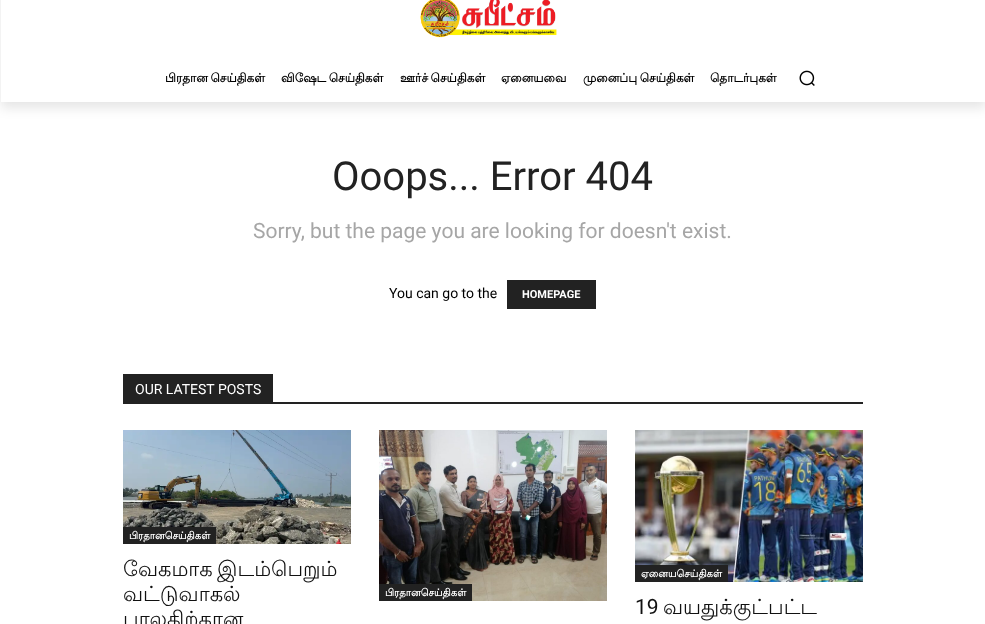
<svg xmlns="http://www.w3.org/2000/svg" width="985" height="624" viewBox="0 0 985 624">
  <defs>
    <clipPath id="clip1"><path d="M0 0H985V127H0ZM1-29H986V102H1Z" clip-rule="evenodd"/></clipPath>
  </defs>
  <rect width="100%" height="100%" fill="#fff"/>
  <image x="420" y="0" width="137" height="38" href="img/1.png"/>
  <g clip-path="url(#clip1)">
    <path d="M1 -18h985v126H1z" fill="#0000001a" filter="blur(6px)"/>
  </g>
  <image x="799" y="70" width="16" height="16" href="img/2.png"/>
  <path d="M507 280h89v29H507z" fill="#222"/>
  <path d="M123 402h740v2H123z" fill="#222"/>
  <path d="M123 374h150v28H123z" fill="#222"/>
  <image x="123" y="430" width="228" height="114" href="img/3.png"/>
  <path d="M123 527h93v17H123z" fill="#222"/>
  <image x="379" y="430" width="228" height="171" href="img/4.png"/>
  <path d="M379 584h93v17H379z" fill="#222"/>
  <image x="635" y="430" width="228" height="152" href="img/5.png"/>
  <path d="M635 565h93v17H635z" fill="#222"/>
  <g font-family="Lohit Tamil" font-size="12" font-weight="bold" fill="#000">
    <text x="165" y="82" word-spacing="-1">பிரதான செய்திகள்</text>
    <text x="281" y="82" word-spacing="-1">விஷேட செய்திகள்</text>
    <text x="400" y="82" word-spacing="-1">ஊர்ச் செய்திகள்</text>
    <text x="501" y="82">ஏனையவை</text>
    <text x="583" y="82" word-spacing="-1">முனைப்பு செய்திகள்</text>
    <text x="710" y="82">தொடர்புகள்</text>
  </g>
  <text x="332" y="190" font-family="Roboto" font-size="40" fill="#222">Ooops... Error 404</text>
  <text x="253" y="238" font-family="Roboto" font-size="21" fill="#a6a6a6">Sorry, but the page you are looking for doesn't exist.</text>
  <text x="389" y="298" font-family="Roboto" font-size="14" fill="#000">You can go to the</text>
  <text x="522" y="298" font-family="Roboto" font-size="11" font-weight="bold" fill="#fff">HOMEPAGE</text>
  <text x="135" y="394" font-family="Roboto" font-size="14" fill="#fff">OUR LATEST POSTS</text>
  <text x="129" y="539" font-family="Lohit Tamil" font-size="10" font-weight="bold" fill="#fff">பிரதானசெய்திகள்</text>
  <g font-family="Lohit Tamil" font-size="21" fill="#111">
    <text x="123" y="576">வேகமாக</text>
    <text x="217" y="576">இடம்பெறும்</text>
    <text x="123" y="601">வட்டுவாகல்</text>
    <text x="123" y="626">பாலதிற்கான</text>
  </g>
  <g font-family="Lohit Tamil" font-size="10" font-weight="bold" fill="#fff">
    <text x="385" y="596">பிரதானசெய்திகள்</text>
    <text x="641" y="577">ஏனையசெய்திகள்</text>
  </g>
  <text x="635" y="614" font-family="Roboto" font-size="21" fill="#111">19</text>
  <text x="663" y="614" font-family="Lohit Tamil" font-size="21" fill="#111">வயதுக்குட்பட்ட</text>
</svg>
